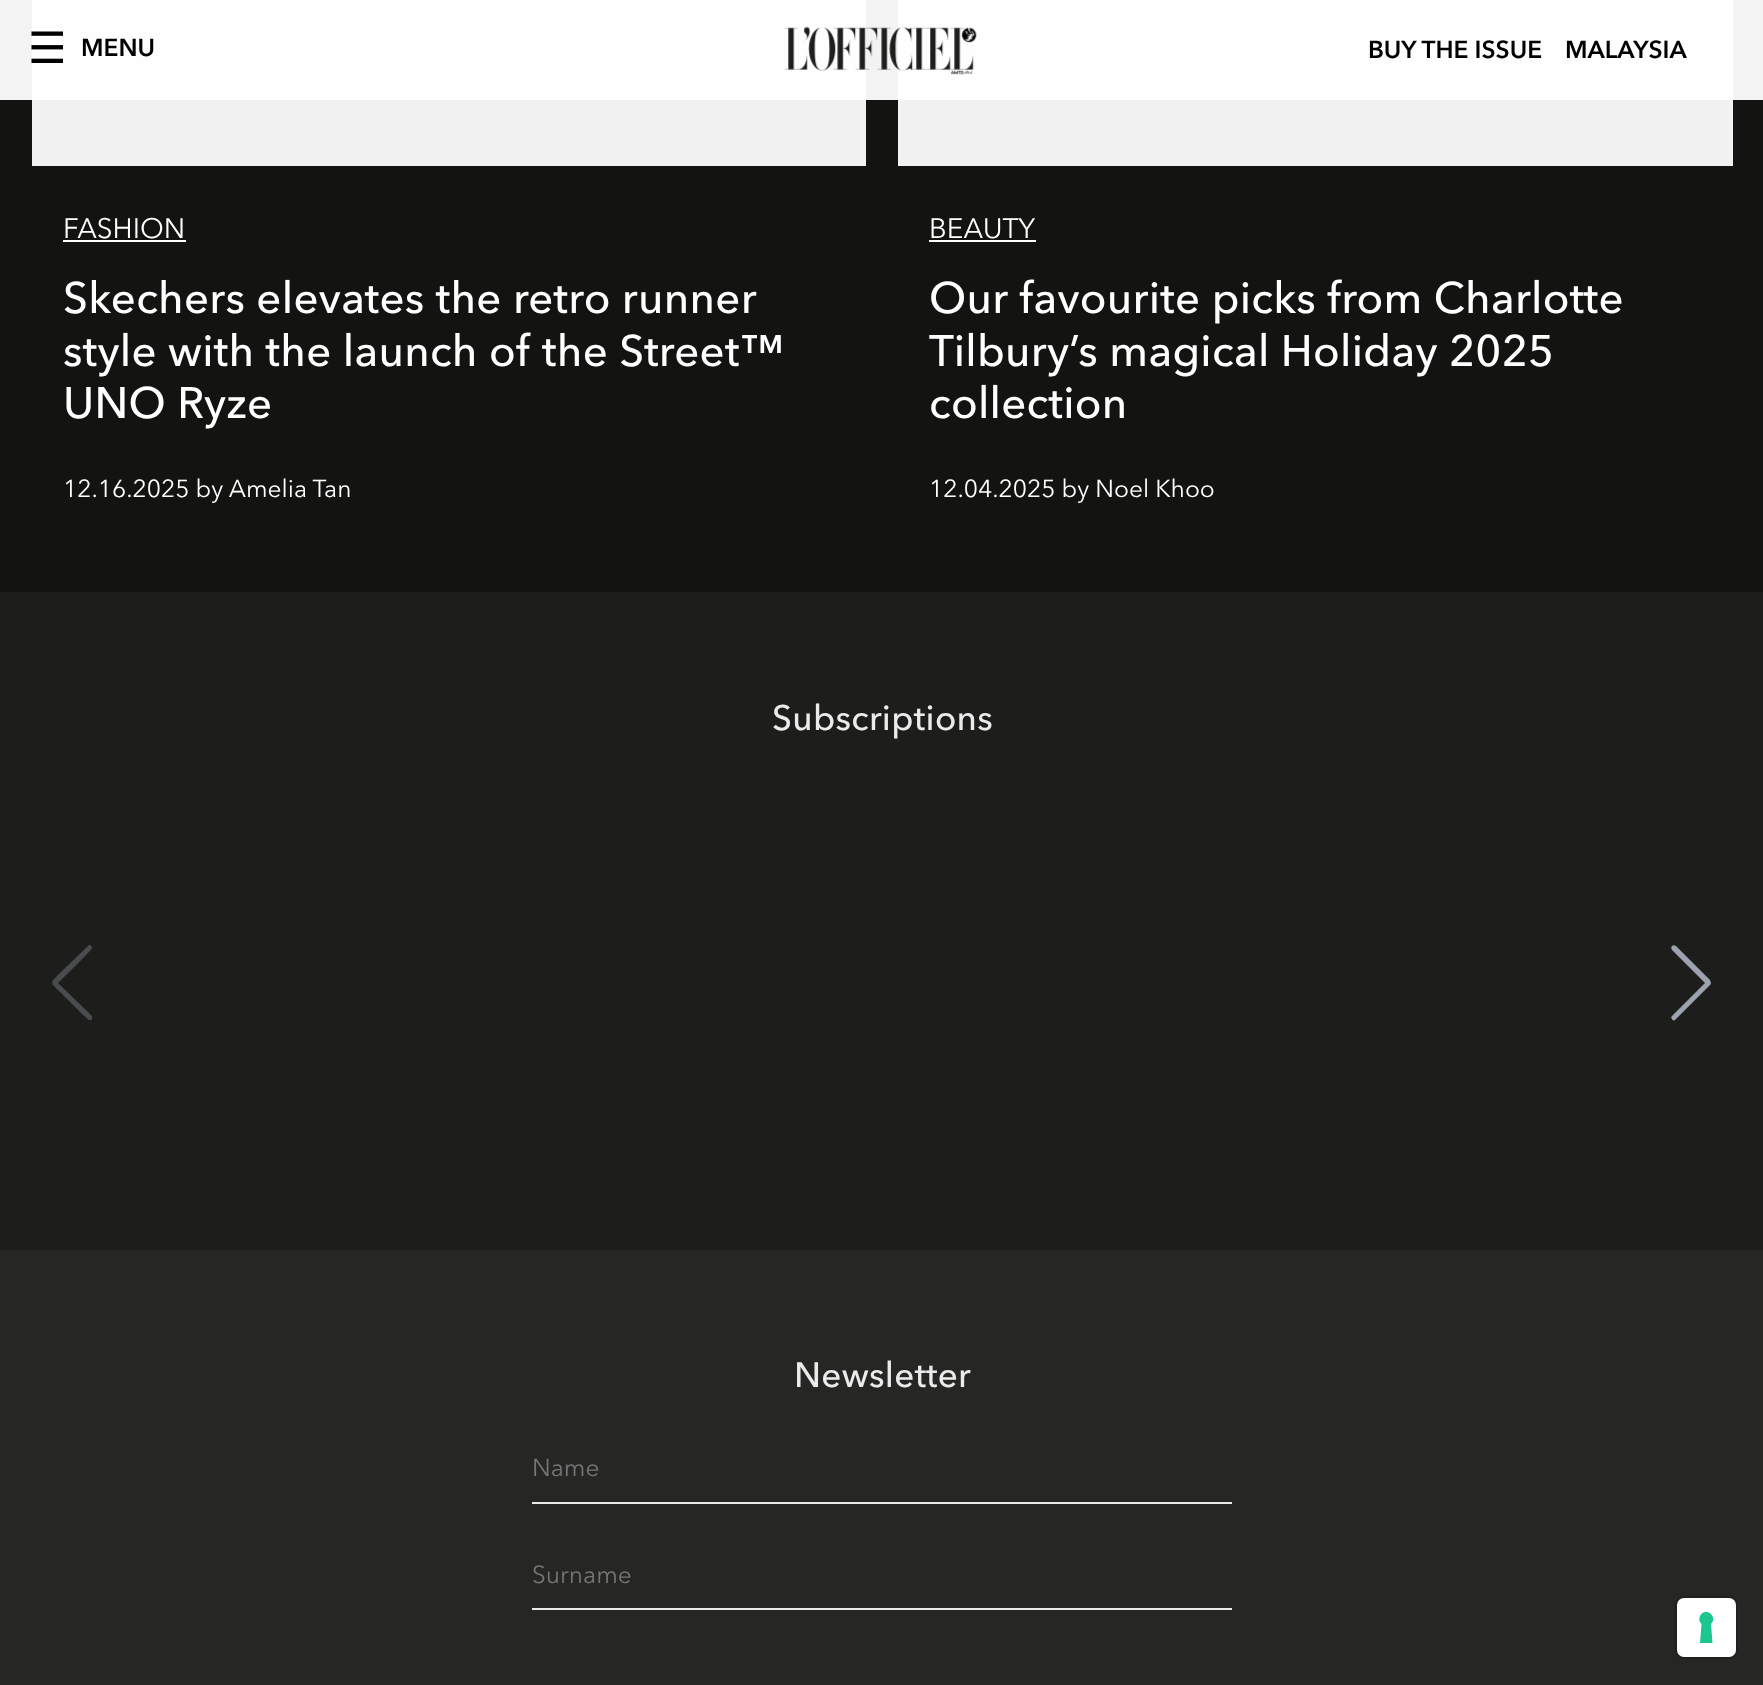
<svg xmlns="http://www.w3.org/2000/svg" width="1763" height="1685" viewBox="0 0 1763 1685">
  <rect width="100%" height="100%" fill="#131312"/>
  <path d="M0 0h1763v100H0z" fill="#f3f3f3"/>
  <path d="M32 0h834v100H32z" fill="#fefefe"/>
  <image x="31" y="31" width="32" height="32" href="img/1.png"/>
  <path d="M898 0h835v100H898z" fill="#fefefe"/>
  <image x="784" y="26" width="193" height="49" href="img/2.png"/>
  <path d="M32 100h834v66H32z" fill="#f1f1f1"/>
  <path d="M63 240h123v2H63z" fill="#fff"/>
  <path d="M898 100h835v66H898z" fill="#f1f1f1"/>
  <path d="M929 240h107v2H929z" fill="#fff"/>
  <path d="M0 592h1763v658H0z" fill="#1d1d1b"/>
  <path d="M88 946C89 944 92 945 92 948C92 950 62 979 58 983L92 1016V1018C91 1024 86 1017 82 1014L59 991C50 982 50 983 59 974Z" fill="#494c4f"/>
  <path d="M1672 1019C1671 1018 1671 1017 1672 1016L1705 983L1672 950C1671 948 1671 947 1672 946C1673 945 1674 945 1676 946L1710 980C1710 981 1711 982 1711 983C1711 984 1710 985 1710 985L1676 1019C1674 1021 1673 1021 1672 1019Z" fill="#9ca3af"/>
  <path d="M0 1250h1763v435H0z" fill="#262624"/>
  <path d="M532 1502h700v2H532z" fill="#ebebeb"/>
  <path d="M532 1608h700v2H532z" fill="#ebebeb"/>
  <rect x="1676" y="1597" width="61" height="61" rx="8" fill="none" stroke="#20201f" stroke-width="2"/>
  <rect x="1677" y="1598" width="59" height="59" rx="7" fill="#fff"/>
  <path d="M1706 1612C1712.5 1612 1715.5 1620 1711 1624L1712.5 1643H1700L1701.5 1624C1697 1620 1700 1612 1706 1612Z" fill="#1cc691" fill-rule="evenodd"/>
  <g font-family="Avenir Next" font-size="24.5" font-weight="bold" fill="#000">
    <text x="81" y="56">MENU</text>
    <text x="1368" y="58">BUY THE ISSUE</text>
    <text x="1565" y="58">MALAYSIA</text>
  </g>
  <text x="63" y="238" font-family="Avenir Next" font-size="28" fill="#fff">FASHION</text>
  <g font-family="Avenir Next" font-size="43.75" font-weight="500" letter-spacing="0.3" fill="#fff">
    <text x="63" y="313">Skechers elevates the retro runner</text>
    <text x="63" y="366">style with the launch of the Street™</text>
    <text x="63" y="418">UNO Ryze</text>
  </g>
  <text x="63" y="497" font-family="Avenir Next" font-size="24.5" fill="#fff">12.16.2025 by Amelia Tan</text>
  <text x="929" y="238" font-family="Avenir Next" font-size="28" fill="#fff">BEAUTY</text>
  <g font-family="Avenir Next" font-size="43.75" font-weight="500" letter-spacing="0.3" fill="#fff">
    <text x="929" y="313">Our favourite picks from Charlotte</text>
    <text x="929" y="366">Tilbury’s magical Holiday 2025</text>
    <text x="929" y="418">collection</text>
  </g>
  <text x="929" y="497" font-family="Avenir Next" font-size="24.5" fill="#fff">12.04.2025 by Noel Khoo</text>
  <g font-family="Avenir Next" font-size="35" font-weight="500" letter-spacing="0.3" fill="#ebebeb">
    <text x="772" y="730">Subscriptions</text>
    <text x="794" y="1387">Newsletter</text>
  </g>
  <g font-family="Avenir Next" font-size="24.5" fill="#757575">
    <text x="532" y="1476">Name</text>
    <text x="532" y="1583">Surname</text>
  </g>
</svg>
